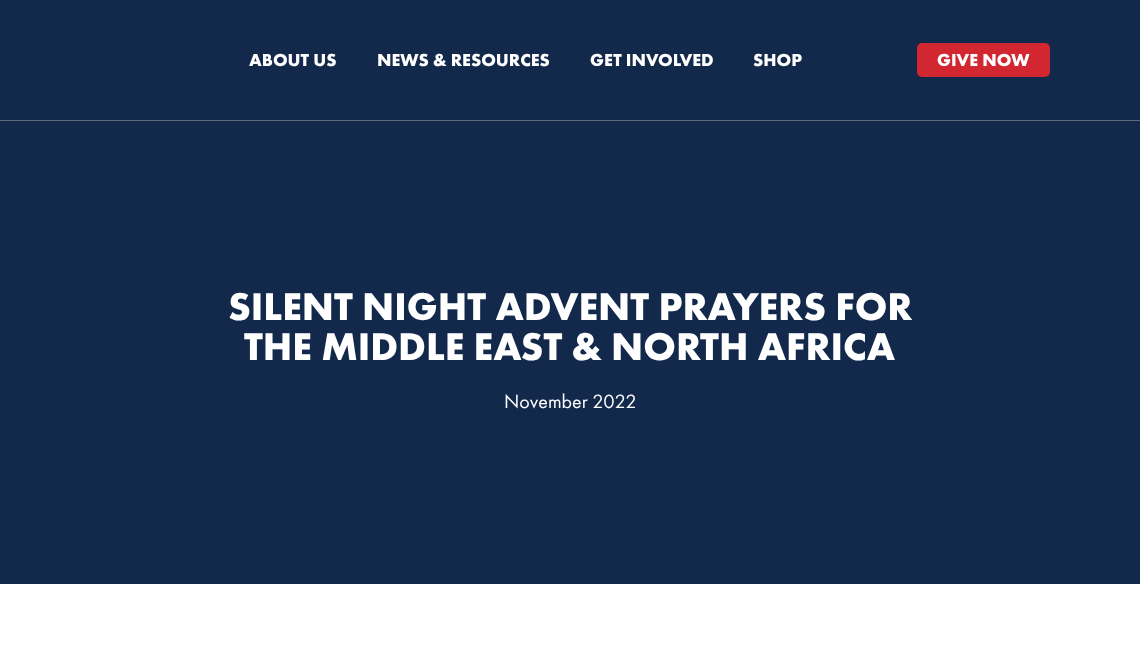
<svg xmlns="http://www.w3.org/2000/svg" width="1140" height="654" viewBox="0 0 1140 654">
  <rect width="100%" height="100%" fill="#fff"/>
  <path d="M0 0h1140v120H0z" fill="#13294b"/>
  <rect x="917" y="43" width="133" height="34" rx="5" fill="#d22630"/>
  <path d="M0 121h1140v463H0z" fill="#13294b"/>
  <path d="M0 120h1140v1H0z" fill="#5e6a7d"/>
  <g font-family="Futura PT" font-size="18" font-weight="bold" fill="#fff">
    <text x="249" y="66">ABOUT US</text>
    <text x="377" y="66">NEWS &amp; RESOURCES</text>
    <text x="590" y="66">GET INVOLVED</text>
    <text x="753" y="66">SHOP</text>
    <text x="937" y="66">GIVE NOW</text>
  </g>
  <g font-family="Futura PT" font-size="40" font-weight="bold" fill="#fff">
    <text x="228" y="320">SILENT NIGHT ADVENT PRAYERS FOR</text>
    <text x="244" y="360">THE MIDDLE EAST &amp; NORTH AFRICA</text>
  </g>
  <text x="504" y="408" font-family="Futura PT" font-size="20" fill="#fff">November 2022</text>
</svg>
